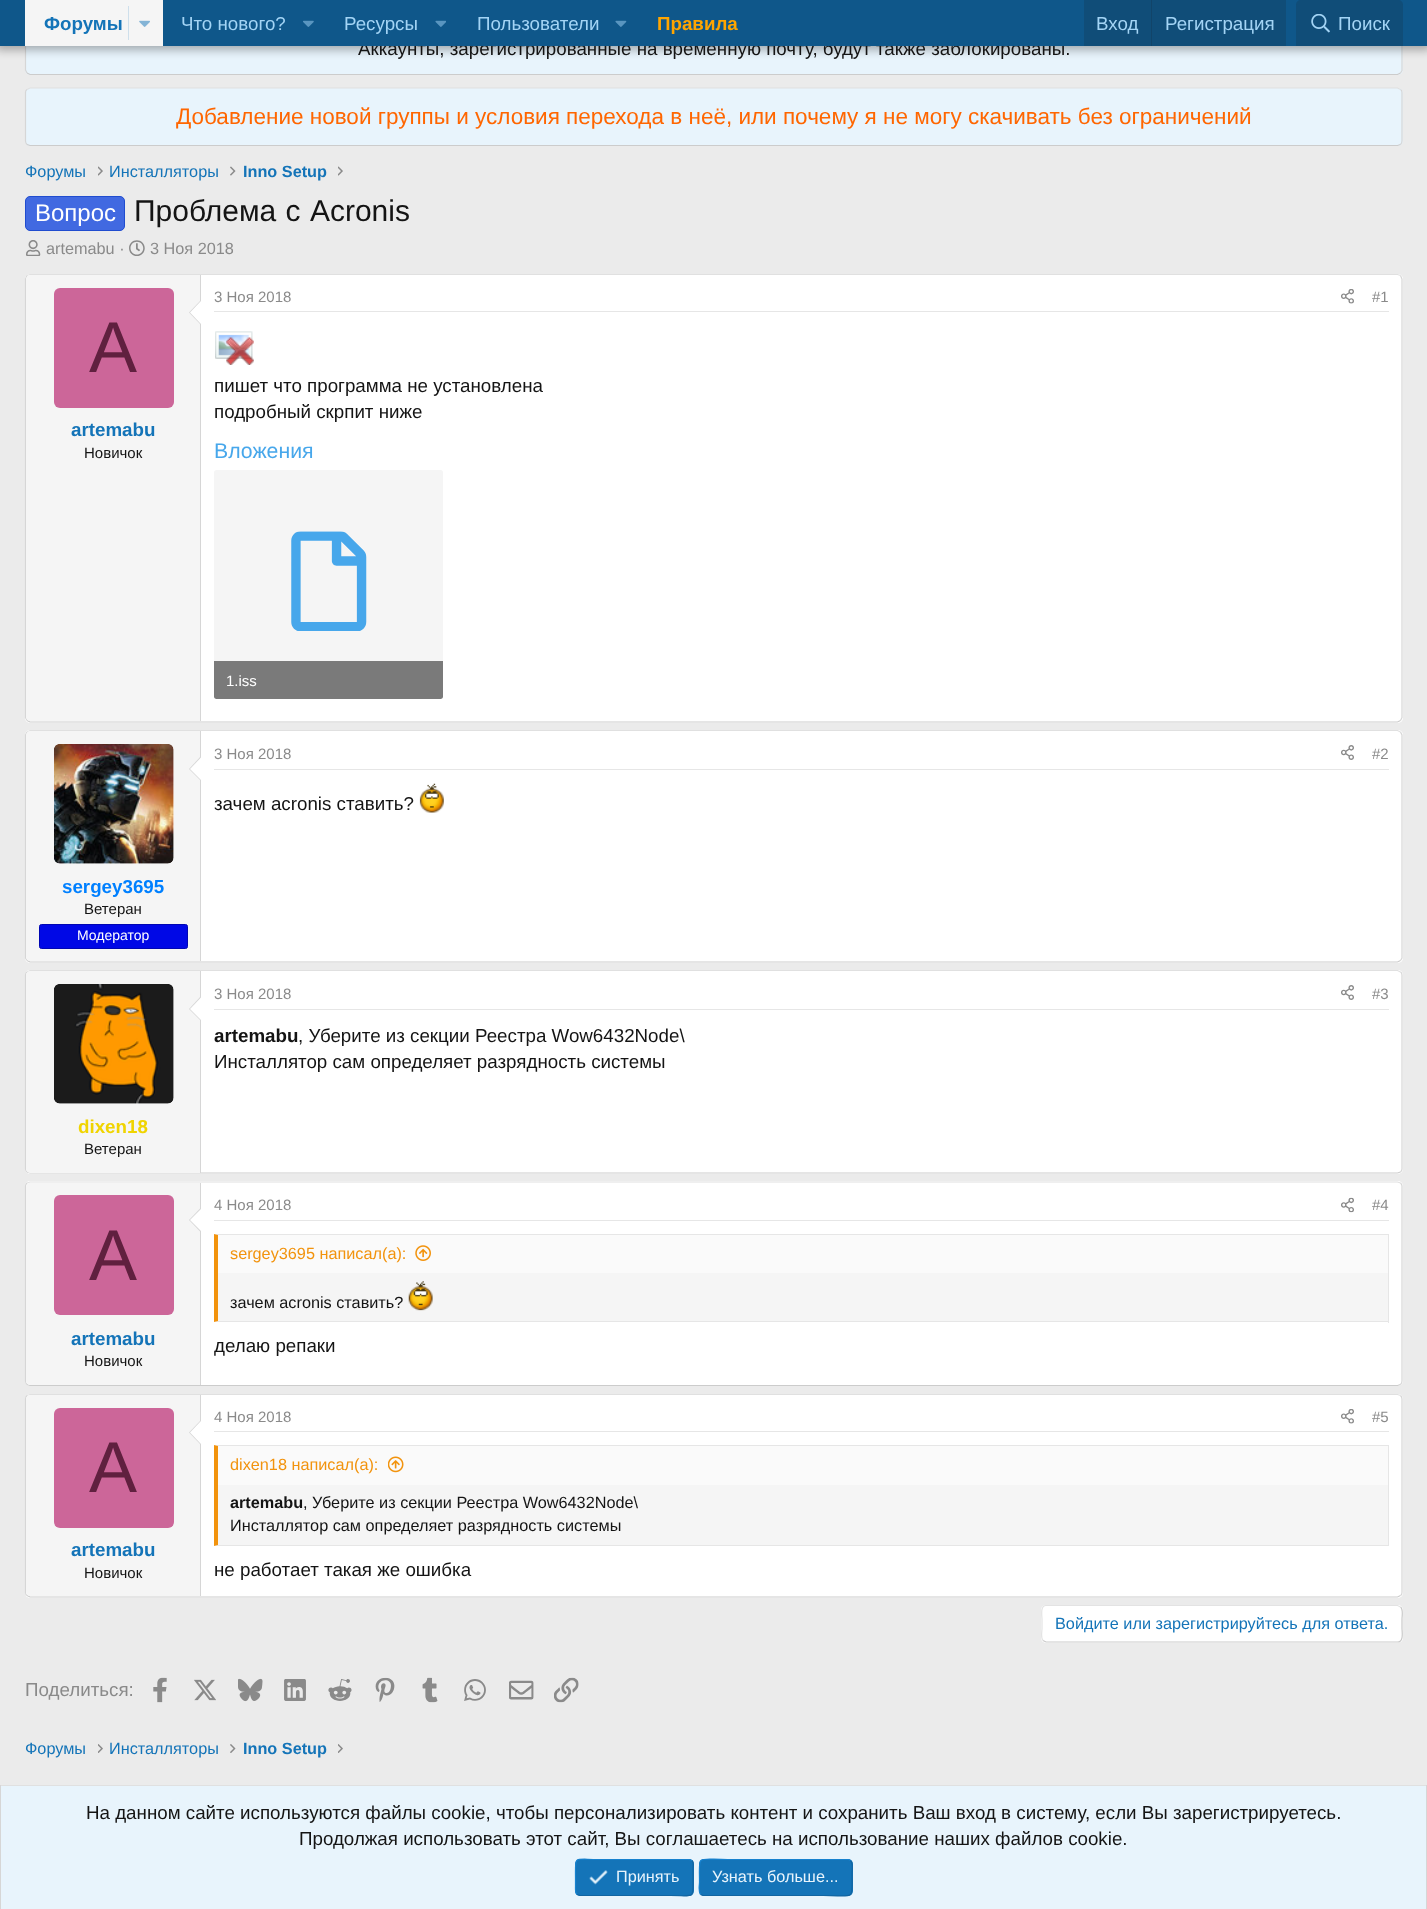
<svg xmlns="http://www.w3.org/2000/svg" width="1427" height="1909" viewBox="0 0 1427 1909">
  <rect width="100%" height="100%" fill="#ebebeb"/>
  <rect x="25" y="-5" width="1378" height="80" rx="5" fill="#e8f4fc"/>
  <path d="M1400.5-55.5L1402-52.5V70.5L1400.5 73" fill="none" stroke="#d6d6d6" stroke-width="1.2"/>
  <path d="M1400.5 73L1397.5 74.5H30L27 73" fill="none" stroke="#ccc" stroke-width="1.2"/>
  <path d="M27 73L25.5 70V-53L27-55.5" fill="none" stroke="#d6d6d6" stroke-width="1.2"/>
  <path d="M-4 -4h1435v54H-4z" fill="#0000004d" filter="blur(5px)"/>
  <rect x="25" y="88" width="1378" height="58" rx="5" fill="#e8f4fc"/>
  <path d="M27 89.5L30 88H1397.5L1400.5 89.5" fill="none" stroke="#e0e0e0" stroke-width="1.2"/>
  <path d="M1400.5 89.5C1401.5 90 1402 91.5 1402 92.5V141C1402 142.5 1401.5 143.5 1400.5 144.5" fill="none" stroke="#d6d6d6" stroke-width="1.2"/>
  <path d="M1400.5 144.5L1397.5 145.5H30L27 144.5" fill="none" stroke="#ccc" stroke-width="1.2"/>
  <path d="M27 144.5C26 143.5 25.5 142.5 25.5 141V92.5C25.5 91.5 26 90 27 89.5" fill="none" stroke="#d6d6d6" stroke-width="1.2"/>
  <image x="98" y="166" width="5" height="10" href="img/6.png"/>
  <image x="230" y="166" width="6" height="10" href="img/7.png"/>
  <image x="338" y="166" width="5" height="10" href="img/6.png"/>
  <rect x="25.5" y="196.5" width="99" height="34" rx="4.5" fill="#4169e1" stroke="#204ccf"/>
  <image x="26" y="240" width="15" height="16" href="img/8.png"/>
  <image x="129" y="240" width="16" height="16" href="img/9.png"/>
  <rect x="25" y="274" width="1378" height="449" rx="5" fill="#fff"/>
  <path d="M27 275.5L30 274.5H1397.5L1400.5 275.5" fill="none" stroke="#e0e0e0" stroke-width="1.2"/>
  <path d="M1400.5 275.5L1402 279V717.5L1400.5 720.5" fill="none" stroke="#d6d6d6" stroke-width="1.2"/>
  <path d="M1400.5 720.5L1397.5 722H30L27 720.5" fill="none" stroke="#ccc" stroke-width="1.2"/>
  <path d="M27 720.5L25.5 717.5V279L27 275.5" fill="none" stroke="#d6d6d6" stroke-width="1.2"/>
  <path d="M30 275H201V721H30C28 721 26 719 26 717V279C26 277 28 275 30 275Z" fill="#f5f5f5"/>
  <path d="M200 275h1v446H200z" fill="#d6d6d6"/>
  <path d="M201 300V325L189 312.5Z" fill="#d6d6d6"/>
  <path d="M201 301V324L190 312.5Z" fill="#fff"/>
  <rect x="54" y="288" width="120" height="120" rx="6" fill="#c69"/>
  <path d="M214 311h1175v1H214z" fill="#e6e6e6"/>
  <image x="1341" y="289" width="13" height="15" href="img/10.png"/>
  <image x="215" y="331" width="39" height="34" href="img/11.png"/>
  <rect x="214" y="470" width="229" height="229" rx="2.5" fill="#f5f5f5"/>
  <image x="291" y="531" width="76" height="100" href="img/12.png"/>
  <path d="M214 661H443V696.5C443 698 442 699 440.5 699H216.5C215 699 214 698 214 696.5Z" fill="#00000080"/>
  <rect x="25" y="730" width="1378" height="233" rx="5" fill="#fff"/>
  <path d="M27 732L30 730.5H1397.5L1400.5 732" fill="none" stroke="#e0e0e0" stroke-width="1.2"/>
  <path d="M1400.5 732L1402 735V958L1400.5 960.5" fill="none" stroke="#d6d6d6" stroke-width="1.2"/>
  <path d="M1400.5 960.5L1397.5 962H30L27 960.5" fill="none" stroke="#ccc" stroke-width="1.2"/>
  <path d="M27 960.5L25.5 958V772V735L27 732" fill="none" stroke="#d6d6d6" stroke-width="1.2"/>
  <path d="M214 769h1175v1H214z" fill="#e6e6e6"/>
  <image x="1341" y="745" width="13" height="15" href="img/13.png"/>
  <image x="419" y="783" width="25" height="30" href="img/14.png"/>
  <path d="M30 731H201V961H30C28 961 26 959 26 957V735C26 733 28 731 30 731Z" fill="#f5f5f5"/>
  <path d="M200 731h1v230H200z" fill="#d6d6d6"/>
  <rect x="54" y="744" width="120" height="120" rx="6" fill="#fff"/>
  <image x="54" y="744" width="120" height="120" href="img/15.png"/>
  <path d="M201 756V781L189 769Z" fill="#d6d6d6"/>
  <path d="M201 757.5V780L190 769Z" fill="#fff"/>
  <rect x="39.5" y="924.5" width="148" height="24" rx="2" fill="#0008e6" stroke="#0006b3"/>
  <rect x="25" y="970" width="1378" height="204" rx="5" fill="#fff"/>
  <path d="M27 972L30 970.5H1397.5L1400.5 972" fill="none" stroke="#e0e0e0" stroke-width="1.2"/>
  <path d="M1400.5 972C1401.5 972.5 1402 974 1402 975V1169C1402 1170 1401.5 1171 1400.5 1172" fill="none" stroke="#d6d6d6" stroke-width="1.2"/>
  <path d="M1400.5 1172L1397.5 1173H30L27 1172" fill="none" stroke="#ccc" stroke-width="1.2"/>
  <path d="M27 1172C26 1171 25.5 1170 25.5 1169V975C25.5 974 26 972.5 27 972" fill="none" stroke="#d6d6d6" stroke-width="1.2"/>
  <path d="M214 1009h1175v1H214z" fill="#e6e6e6"/>
  <image x="1341" y="985" width="13" height="15" href="img/13.png"/>
  <path d="M30 971H201V1173H30C28 1173 26 1171 26 1169V975C26 973 28 971 30 971Z" fill="#f5f5f5"/>
  <path d="M200 971h1v202H200z" fill="#d6d6d6"/>
  <rect x="54" y="984" width="120" height="120" rx="6" fill="#fff"/>
  <image x="54" y="984" width="120" height="120" href="img/16.png"/>
  <path d="M201 996V1021L189 1009Z" fill="#d6d6d6"/>
  <path d="M201 997.5V1020L190 1009Z" fill="#fff"/>
  <rect x="25" y="1181" width="1378" height="205" rx="5" fill="#fff"/>
  <path d="M27 1183L30 1182H1397.5L1400.5 1183" fill="none" stroke="#e0e0e0" stroke-width="1.2"/>
  <path d="M1400.5 1183C1401.5 1184 1402 1185 1402 1186V1381C1402 1382.5 1401.5 1383.5 1400.5 1384.5" fill="none" stroke="#d6d6d6" stroke-width="1.2"/>
  <path d="M1400.5 1384.5L1397.5 1385.5H30L27 1384.5" fill="none" stroke="#ccc" stroke-width="1.2"/>
  <path d="M27 1384.5C26 1383.5 25.5 1382.5 25.5 1381V1186C25.5 1185 26 1184 27 1183" fill="none" stroke="#d6d6d6" stroke-width="1.2"/>
  <path d="M30 1183H201V1385H30C28 1385 26 1383 26 1381V1187C26 1185 28 1183 30 1183Z" fill="#f5f5f5"/>
  <path d="M200 1183h1v202H200z" fill="#d6d6d6"/>
  <path d="M201 1207.5V1232.5L189 1220Z" fill="#d6d6d6"/>
  <path d="M201 1209V1231L190 1220Z" fill="#fff"/>
  <rect x="54" y="1195" width="120" height="120" rx="6" fill="#c69"/>
  <path d="M214 1220h1175v1H214z" fill="#e6e6e6"/>
  <image x="1341" y="1197" width="13" height="16" href="img/17.png"/>
  <path d="M218 1273h1170v48H218z" fill="#f5f5f5"/>
  <path d="M214 1234H1389L1388 1235H218Z" fill="#e6e6e6"/>
  <path d="M1388 1234h1v89H1388z" fill="#e6e6e6"/>
  <path d="M1389 1322H214L218 1321H1388Z" fill="#e6e6e6"/>
  <path d="M214 1322V1234L218 1235V1321Z" fill="#f2930d"/>
  <path d="M218 1235h1170v38H218z" fill="#fafafa"/>
  <image x="415" y="1245" width="16" height="16" href="img/18.png"/>
  <image x="408" y="1281" width="25" height="30" href="img/19.png"/>
  <rect x="25" y="1394" width="1378" height="204" rx="5" fill="#fff"/>
  <path d="M27 1395.5L30 1394.5H1397.5L1400.5 1395.5" fill="none" stroke="#e0e0e0" stroke-width="1.2"/>
  <path d="M1400.5 1395.5C1401.5 1396.5 1402 1397.5 1402 1399V1592.5C1402 1593.5 1401.5 1595 1400.5 1595.5" fill="none" stroke="#d6d6d6" stroke-width="1.2"/>
  <path d="M1400.5 1595.5L1397.5 1597H30L27 1595.5" fill="none" stroke="#ccc" stroke-width="1.2"/>
  <path d="M27 1595.5C26 1595 25.5 1593.5 25.5 1592.5V1399C25.5 1397.5 26 1396.5 27 1395.5" fill="none" stroke="#d6d6d6" stroke-width="1.2"/>
  <path d="M30 1395H201V1596H30C28 1596 26 1594 26 1592V1399C26 1397 28 1395 30 1395Z" fill="#f5f5f5"/>
  <path d="M200 1395h1v201H200z" fill="#d6d6d6"/>
  <path d="M201 1420V1445L189 1432.5Z" fill="#d6d6d6"/>
  <path d="M201 1421V1444L190 1432.5Z" fill="#fff"/>
  <rect x="54" y="1408" width="120" height="120" rx="6" fill="#c69"/>
  <path d="M214 1431h1175v1H214z" fill="#e6e6e6"/>
  <image x="1341" y="1409" width="13" height="15" href="img/10.png"/>
  <path d="M218 1485h1170v60H218z" fill="#f5f5f5"/>
  <path d="M214 1445H1389L1388 1446H218Z" fill="#e6e6e6"/>
  <path d="M1388 1445h1v101H1388z" fill="#e6e6e6"/>
  <path d="M1389 1546H214L218 1545H1388Z" fill="#e6e6e6"/>
  <path d="M214 1546V1445L218 1446V1545Z" fill="#f2930d"/>
  <path d="M218 1446h1170v39H218z" fill="#fafafa"/>
  <image x="388" y="1456" width="16" height="17" href="img/20.png"/>
  <rect x="1041" y="1605" width="362" height="38" rx="5" fill="#fff"/>
  <path d="M1400.5 1607C1403.5 1609.5 1402 1616 1402 1619V1628.5C1402 1631.5 1404 1642 1397.5 1642H1046L1043 1640.5" fill="none" stroke="#c9c9c9" stroke-width="1.2"/>
  <path d="M1043 1640.5C1040.5 1638 1042 1631.5 1042 1628.5V1619C1042 1616 1040 1605.5 1046 1605.5H1397.5L1400.5 1607" fill="none" stroke="#e3e3e3" stroke-width="1.2"/>
  <image x="153" y="1677" width="14" height="26" href="img/21.png"/>
  <image x="194" y="1679" width="22" height="22" href="img/22.png"/>
  <image x="238" y="1678" width="25" height="24" href="img/23.png"/>
  <image x="284" y="1679" width="22" height="22" href="img/24.png"/>
  <image x="328" y="1679" width="24" height="22" href="img/25.png"/>
  <image x="375" y="1677" width="20" height="25" href="img/26.png"/>
  <image x="422" y="1677" width="16" height="26" href="img/27.png"/>
  <image x="464" y="1679" width="22" height="22" href="img/28.png"/>
  <image x="509" y="1680" width="25" height="20" href="img/29.png"/>
  <image x="554" y="1677" width="25" height="26" href="img/30.png"/>
  <image x="98" y="1744" width="5" height="9" href="img/31.png"/>
  <image x="230" y="1744" width="6" height="9" href="img/32.png"/>
  <image x="338" y="1744" width="5" height="9" href="img/31.png"/>
  <path d="M1 1786h1425v123H1z" fill="#e8f4fc"/>
  <path d="M0 1785h1427v1H0z" fill="#e0e0e0"/>
  <path d="M1426 1785h1v124H1426z" fill="#d6d6d6"/>
  <path d="M0 1785h1v124H0z" fill="#d6d6d6"/>
  <rect x="575" y="1859" width="119" height="37" rx="5" fill="#1474b8"/>
  <path d="M692 1860.5C694 1862.5 693 1866 693 1868.5V1877.5C693 1900 695.5 1895.5 670.5 1895.5H580L577 1894.5" fill="none" stroke="#1265a1" stroke-width="1.2"/>
  <path d="M577 1894.5C575 1892.5 575.5 1889 575.5 1886.5V1877.5C575.5 1855 573 1859.5 598 1859.5H689L692 1860.5" fill="none" stroke="#1782cf" stroke-width="1.2"/>
  <image x="589" y="1870" width="19" height="15" href="img/33.png"/>
  <rect x="699" y="1859" width="154" height="37" rx="5" fill="#1474b8"/>
  <path d="M850.5 1860.5C853.5 1863.5 852 1870 852 1873C852 1901.5 856 1895.5 823.5 1895.5H703L700.5 1894.5" fill="none" stroke="#1265a1" stroke-width="1.2"/>
  <path d="M700.5 1894.5C698 1891.5 699.5 1885 699.5 1882C699.5 1853.5 695.5 1859.5 727.5 1859.5H848.5L850.5 1860.5" fill="none" stroke="#1782cf" stroke-width="1.2"/>
  <text x="358" y="55" font-family="Liberation Sans" font-size="18.75" fill="#141414">Аккаунты, зарегистрированные на временную почту, будут также заблокированы.</text>
  <path d="M0 0h1427v46H0z" fill="#0f578a"/>
  <path d="M1301 0H1398C1401 0 1403 2 1403 5V46H1296V5C1296 2 1298 0 1301 0Z" fill="#104d78"/>
  <image x="1311" y="14" width="19" height="19" href="img/5.png"/>
  <image x="615" y="20" width="12" height="7" href="img/4.png"/>
  <image x="435" y="20" width="11" height="7" href="img/3.png"/>
  <image x="303" y="20" width="11" height="7" href="img/2.png"/>
  <path d="M25 0h138v46H25z" fill="#f5f5f5"/>
  <image x="139" y="20" width="11" height="7" href="img/1.png"/>
  <path d="M128 6h1v34H128z" fill="#cedfeb"/>
  <text x="657" y="30" font-family="Liberation Sans" font-size="18.75" font-weight="bold" fill="#ffa500">Правила</text>
  <g font-family="Liberation Sans" font-size="18.75" fill="#a3d4f5">
    <text x="477" y="30">Пользователи</text>
    <text x="344" y="30">Ресурсы</text>
    <text x="181" y="30">Что нового?</text>
  </g>
  <text x="44" y="30" font-family="Liberation Sans" font-size="18.75" font-weight="bold" fill="#1474b8">Форумы</text>
  <text x="1338" y="30" font-family="Liberation Sans" font-size="18.75" fill="#a3d4f5">Поиск</text>
  <path d="M1084 0h202v46H1084z" fill="#104d78"/>
  <text x="1165" y="30" font-family="Liberation Sans" font-size="18.75" fill="#a3d4f5">Регистрация</text>
  <path d="M1151 0h1v46H1151z" fill="#114469"/>
  <text x="1096" y="30" font-family="Liberation Sans" font-size="18.75" fill="#a3d4f5">Вход</text>
  <text x="176" y="124" font-family="Liberation Sans" font-size="22.5" fill="#f60">Добавление новой группы и условия перехода в неё, или почему я не могу скачивать без ограничений</text>
  <g font-family="Liberation Sans" font-size="16.25" fill="#1474b8">
    <text x="25" y="177">Форумы</text>
    <text x="109" y="177">Инсталляторы</text>
  </g>
  <text x="243" y="177" font-family="Liberation Sans" font-size="16.25" font-weight="bold" fill="#1474b8">Inno Setup</text>
  <text x="35" y="221" font-family="Liberation Sans" font-size="24" fill="#fff">Вопрос</text>
  <text x="134" y="221" word-spacing="1" font-family="Liberation Sans" font-size="30" fill="#141414">Проблема с Acronis</text>
  <g font-family="Liberation Sans" font-size="16.25" fill="#8a8a8a">
    <text x="46" y="254">artemabu ·</text>
    <text x="150" y="254">3 Ноя 2018</text>
  </g>
  <text x="89" y="372" font-family="Liberation Sans" font-size="72" fill="#60203f">A</text>
  <text x="71" y="436" font-family="Liberation Sans" font-size="18.75" font-weight="bold" fill="#1474b8">artemabu</text>
  <text x="84" y="458" font-family="Liberation Sans" font-size="15" fill="#141414">Новичок</text>
  <g font-family="Liberation Sans" font-size="15" fill="#8a8a8a">
    <text x="214" y="302">3 Ноя 2018</text>
    <text x="1372" y="302">#1</text>
  </g>
  <g font-family="Liberation Sans" font-size="18.75" fill="#141414">
    <text x="214" y="392">пишет что программа не установлена</text>
    <text x="214" y="418">подробный скрпит ниже</text>
  </g>
  <text x="214" y="458" font-family="Liberation Sans" font-size="21.25" fill="#47a7eb">Вложения</text>
  <text x="226" y="686" font-family="Liberation Sans" font-size="15" fill="#fff">1.iss</text>
  <g font-family="Liberation Sans" font-size="15" fill="#8a8a8a">
    <text x="214" y="759">3 Ноя 2018</text>
    <text x="1372" y="759">#2</text>
  </g>
  <text x="214" y="810" font-family="Liberation Sans" font-size="18.75" fill="#141414">зачем acronis ставить?</text>
  <text x="62" y="893" font-family="Liberation Sans" font-size="18.75" font-weight="bold" fill="#0080ff">sergey3695</text>
  <text x="84" y="914" font-family="Liberation Sans" font-size="15" fill="#141414">Ветеран</text>
  <text x="77" y="940" font-family="Liberation Sans" font-size="14" fill="#fff">Модератор</text>
  <g font-family="Liberation Sans" font-size="15" fill="#8a8a8a">
    <text x="214" y="999">3 Ноя 2018</text>
    <text x="1372" y="999">#3</text>
  </g>
  <text x="214" y="1042" font-family="Liberation Sans" font-size="18.75" font-weight="bold" fill="#141414">artemabu</text>
  <g font-family="Liberation Sans" font-size="18.75" fill="#141414">
    <text x="298" y="1042">, Уберите из секции Реестра Wow6432Node\</text>
    <text x="214" y="1068">Инсталлятор сам определяет разрядность системы</text>
  </g>
  <text x="78" y="1133" font-family="Liberation Sans" font-size="18.75" font-weight="bold" fill="#f0d400">dixen18</text>
  <text x="84" y="1154" font-family="Liberation Sans" font-size="15" fill="#141414">Ветеран</text>
  <text x="89" y="1280" font-family="Liberation Sans" font-size="72" fill="#60203f">A</text>
  <text x="71" y="1345" font-family="Liberation Sans" font-size="18.75" font-weight="bold" fill="#1474b8">artemabu</text>
  <text x="84" y="1366" font-family="Liberation Sans" font-size="15" fill="#141414">Новичок</text>
  <g font-family="Liberation Sans" font-size="15" fill="#8a8a8a">
    <text x="214" y="1210">4 Ноя 2018</text>
    <text x="1372" y="1210">#4</text>
  </g>
  <text x="230" y="1259" font-family="Liberation Sans" font-size="16.25" fill="#f2930d">sergey3695 написал(а):</text>
  <text x="230" y="1308" font-family="Liberation Sans" font-size="16.25" fill="#141414">зачем acronis ставить?</text>
  <text x="214" y="1352" font-family="Liberation Sans" font-size="18.75" fill="#141414">делаю репаки</text>
  <text x="89" y="1492" font-family="Liberation Sans" font-size="72" fill="#60203f">A</text>
  <text x="71" y="1556" font-family="Liberation Sans" font-size="18.75" font-weight="bold" fill="#1474b8">artemabu</text>
  <text x="84" y="1578" font-family="Liberation Sans" font-size="15" fill="#141414">Новичок</text>
  <g font-family="Liberation Sans" font-size="15" fill="#8a8a8a">
    <text x="214" y="1422">4 Ноя 2018</text>
    <text x="1372" y="1422">#5</text>
  </g>
  <text x="230" y="1470" font-family="Liberation Sans" font-size="16.25" fill="#f2930d">dixen18 написал(а):</text>
  <text x="230" y="1508" font-family="Liberation Sans" font-size="16.25" font-weight="bold" fill="#141414">artemabu</text>
  <g font-family="Liberation Sans" font-size="16.25" fill="#141414">
    <text x="303" y="1508">, Уберите из секции Реестра Wow6432Node\</text>
    <text x="230" y="1531">Инсталлятор сам определяет разрядность системы</text>
  </g>
  <text x="214" y="1576" font-family="Liberation Sans" font-size="18.75" fill="#141414">не работает такая же ошибка</text>
  <text x="1055" y="1629" font-family="Liberation Sans" font-size="16.25" fill="#1474b8">Войдите или зарегистрируйтесь для ответа.</text>
  <text x="25" y="1696" font-family="Liberation Sans" font-size="18.75" fill="#8a8a8a">Поделиться:</text>
  <g font-family="Liberation Sans" font-size="16.25" fill="#1474b8">
    <text x="25" y="1754">Форумы</text>
    <text x="109" y="1754">Инсталляторы</text>
  </g>
  <text x="243" y="1754" font-family="Liberation Sans" font-size="16.25" font-weight="bold" fill="#1474b8">Inno Setup</text>
  <g font-family="Liberation Sans" font-size="18.75" fill="#141414">
    <text x="86" y="1819">На данном сайте используются файлы cookie, чтобы персонализировать контент и сохранить Ваш вход в систему, если Вы зарегистрируетесь.</text>
    <text x="299" y="1845">Продолжая использовать этот сайт, Вы соглашаетесь на использование наших файлов cookie.</text>
  </g>
  <g font-family="Liberation Sans" font-size="16.25" fill="#e8f4fc">
    <text x="616" y="1882">Принять</text>
    <text x="712" y="1882">Узнать больше...</text>
  </g>
</svg>
